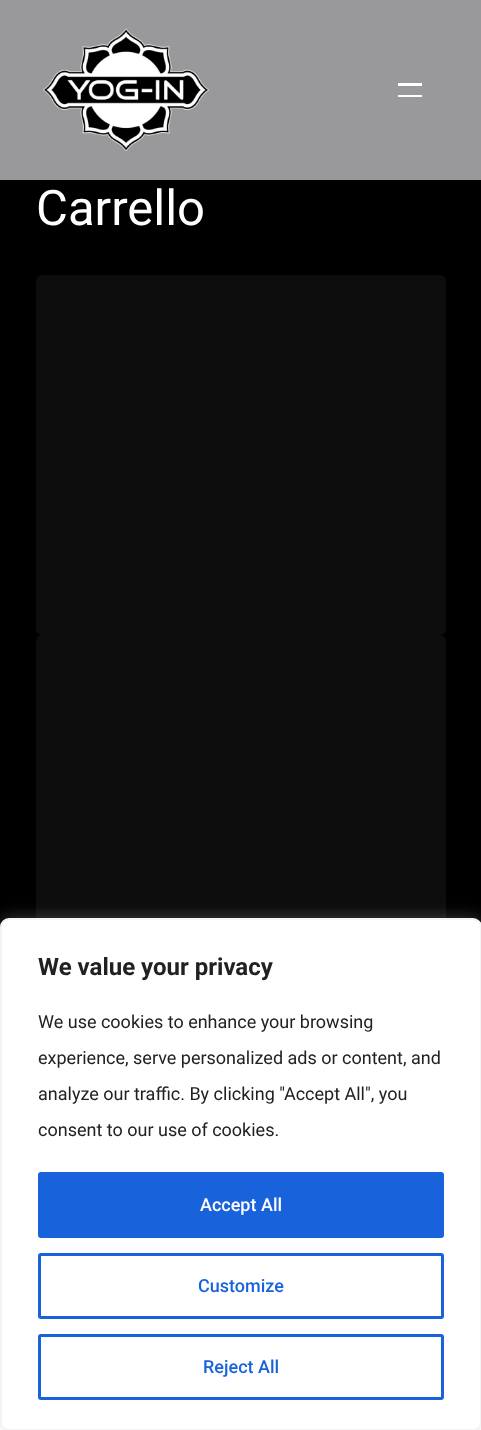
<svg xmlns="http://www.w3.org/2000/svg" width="481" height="1430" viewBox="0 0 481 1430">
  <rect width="100%" height="100%" fill="#000"/>
  <path d="M0 0h481v180H0z" fill="#99999c"/>
  <image x="43" y="28" width="166" height="123" href="img/1.png"/>
  <path d="M398 83h24v3H398z" fill="#fff"/>
  <path d="M398 95h24v2H398z" fill="#fff"/>
  <rect x="36" y="275" width="410" height="360" rx="6" fill="#0d0d0d"/>
  <rect x="36" y="635" width="410" height="300" rx="6" fill="#0d0d0d"/>
  <path d="M0 1422h481v8H0z" fill="#fff"/>
  <rect y="917" width="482" height="513" rx="9" fill="#acabab4d" filter="blur(7.5px)"/>
  <rect x="1" y="919" width="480" height="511" rx="8" fill="#fff" stroke="#f4f4f4" stroke-width="2"/>
  <rect x="39.5" y="1173.5" width="403" height="63" rx="1.5" fill="#1863dc" stroke="#1863dc" stroke-width="3"/>
  <rect x="39.5" y="1254.5" width="403" height="63" rx="1.5" fill="none" stroke="#1863dc" stroke-width="3"/>
  <rect x="39.5" y="1335.5" width="403" height="63" rx="1.5" fill="none" stroke="#1863dc" stroke-width="3"/>
  <text x="36" y="225" font-family="Roboto" font-size="49" fill="#fff">Carrello</text>
  <text x="38" y="975" font-family="Roboto" font-size="24" font-weight="bold" fill="#212121">We value your privacy</text>
  <g font-family="Roboto" font-size="18" fill="#212121">
    <text x="38" y="1028">We use cookies to enhance your browsing</text>
    <text x="38" y="1064">experience, serve personalized ads or content, and</text>
    <text x="38" y="1100">analyze our traffic. By clicking "Accept All", you</text>
    <text x="38" y="1136">consent to our use of cookies.</text>
  </g>
  <text x="200" y="1211" font-family="Roboto" font-size="18" font-weight="500" fill="#fff">Accept All</text>
  <g font-family="Roboto" font-size="18" font-weight="500" fill="#1863dc">
    <text x="198" y="1292">Customize</text>
    <text x="203" y="1373">Reject All</text>
  </g>
</svg>
